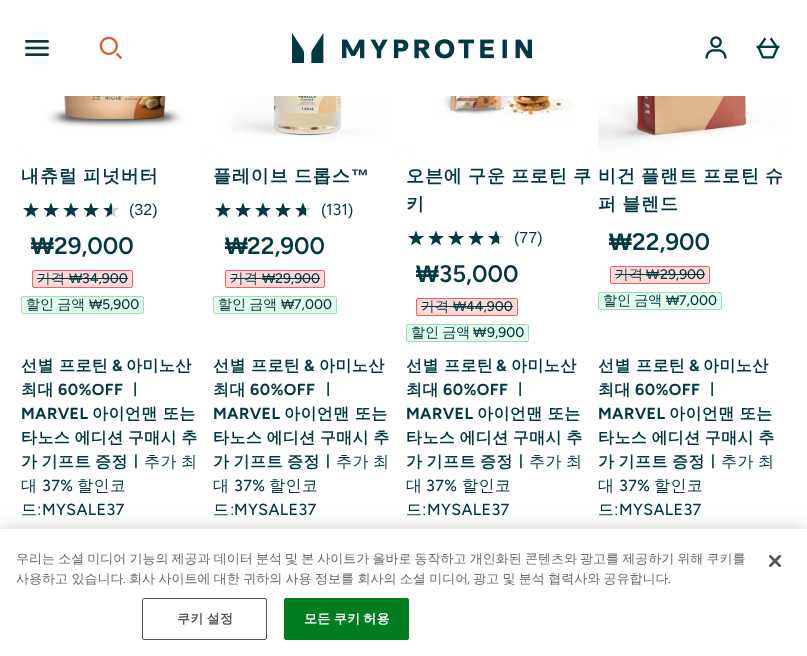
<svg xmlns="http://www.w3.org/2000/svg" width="807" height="656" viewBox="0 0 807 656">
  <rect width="100%" height="100%" fill="#fff"/>
  <rect x="21" y="-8" width="188" height="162" rx="8" fill="#f3f4f6"/>
  <rect x="213" y="-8" width="189" height="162" rx="8" fill="#f3f4f6"/>
  <rect x="406" y="-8" width="188" height="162" rx="8" fill="#f3f4f6"/>
  <rect x="598" y="-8" width="188" height="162" rx="8" fill="#f3f4f6"/>
  <path d="M21 0h765v96H21z" fill="#fff"/>
  <image x="25" y="40" width="24" height="16" href="img/1.png"/>
  <image x="99" y="36" width="23" height="24" href="img/2.png"/>
  <image x="292" y="33" width="240" height="30" href="img/3.png"/>
  <image x="705" y="36" width="22" height="23" href="img/4.png"/>
  <image x="756" y="37" width="24" height="22" href="img/5.png"/>
  <image x="21" y="96" width="188" height="58" href="img/6.png"/>
  <image x="23" y="202" width="16" height="16" href="img/7.png"/>
  <image x="43" y="202" width="16" height="16" href="img/7.png"/>
  <image x="63" y="202" width="16" height="16" href="img/7.png"/>
  <image x="83" y="202" width="16" height="16" href="img/7.png"/>
  <image x="103" y="202" width="16" height="16" href="img/8.png"/>
  <rect x="32.5" y="270.5" width="100" height="17" rx="1.5" fill="#ffdbda" stroke="#ff5b5a"/>
  <path d="M37 278h91v1H37z" fill="#003942"/>
  <rect x="21.5" y="296.5" width="122" height="17" rx="1.5" fill="#e5fbee" stroke="#94e5b5"/>
  <image x="213" y="96" width="189" height="58" href="img/9.png"/>
  <image x="215" y="202" width="16" height="16" href="img/7.png"/>
  <image x="235" y="202" width="16" height="16" href="img/7.png"/>
  <image x="255" y="202" width="16" height="16" href="img/7.png"/>
  <image x="275" y="202" width="16" height="16" href="img/7.png"/>
  <image x="295" y="202" width="16" height="16" href="img/10.png"/>
  <rect x="225.5" y="270.5" width="99" height="17" rx="1.5" fill="#ffdbda" stroke="#ff5b5a"/>
  <path d="M230 278h90v1H230z" fill="#003942"/>
  <rect x="213.5" y="296.5" width="123" height="17" rx="1.5" fill="#e5fbee" stroke="#94e5b5"/>
  <image x="406" y="96" width="188" height="58" href="img/11.png"/>
  <image x="408" y="230" width="16" height="16" href="img/7.png"/>
  <image x="428" y="230" width="16" height="16" href="img/7.png"/>
  <image x="448" y="230" width="16" height="16" href="img/7.png"/>
  <image x="468" y="230" width="16" height="16" href="img/7.png"/>
  <image x="488" y="230" width="16" height="16" href="img/10.png"/>
  <rect x="416.5" y="298.5" width="101" height="17" rx="1.5" fill="#ffdbda" stroke="#ff5b5a"/>
  <path d="M421 306h92v1H421z" fill="#003942"/>
  <rect x="406.5" y="324.5" width="122" height="17" rx="1.5" fill="#e5fbee" stroke="#94e5b5"/>
  <image x="598" y="96" width="188" height="58" href="img/12.png"/>
  <rect x="610.5" y="266.5" width="99" height="17" rx="1.5" fill="#ffdbda" stroke="#ff5b5a"/>
  <path d="M615 274h90v1H615z" fill="#003942"/>
  <rect x="598.5" y="292.5" width="123" height="17" rx="1.5" fill="#e5fbee" stroke="#94e5b5"/>
  <path d="M0 529h807v127H0z" fill="#00000033" filter="blur(9px)"/>
  <path d="M0 529h807v127H0z" fill="#fff"/>
  <rect x="142.5" y="598.5" width="124" height="41" rx="1.5" fill="none" stroke="#555"/>
  <rect x="284.5" y="598.5" width="124" height="41" rx="1.5" fill="#007d1e" stroke="#007d1e"/>
  <image x="769" y="555" width="12" height="12" href="img/13.png"/>
  <text x="21" y="182" word-spacing="-1" font-family="WenQuanYi Zen Hei" font-size="18" font-weight="bold" letter-spacing="0.9" fill="#003942">내츄럴 피넛버터</text>
  <text x="129" y="215" font-family="Liberation Sans" font-size="16" fill="#003942">(32)</text>
  <text x="31" y="254" font-family="Liberation Sans" font-size="24" font-weight="bold" fill="#003942">₩</text>
  <text x="54" y="254" font-family="Figtree" font-size="24" font-weight="600" fill="#003942">29,000</text>
  <text x="37" y="283" font-family="WenQuanYi Zen Hei" font-size="14" font-weight="500" fill="#003942">가격</text>
  <text x="69" y="283" font-family="Liberation Sans" font-size="14" fill="#003942">₩</text>
  <text x="82" y="283" font-family="Figtree" font-size="14" font-weight="500" fill="#003942">34,900</text>
  <text x="26" y="309" word-spacing="-1" font-family="WenQuanYi Zen Hei" font-size="14" font-weight="500" fill="#003942">할인 금액</text>
  <text x="89" y="309" font-family="Liberation Sans" font-size="14" fill="#003942">₩</text>
  <text x="102" y="309" font-family="Figtree" font-size="14" font-weight="500" fill="#003942">5,900</text>
  <text x="21" y="371" font-family="WenQuanYi Zen Hei" font-size="16" font-weight="bold" letter-spacing="0.4" fill="#003942">선별 프로틴</text>
  <text x="112" y="371" font-family="Figtree" font-size="16" font-weight="bold" letter-spacing="0.4" fill="#003942">&amp;</text>
  <g font-family="WenQuanYi Zen Hei" font-size="16" font-weight="bold" letter-spacing="0.4" fill="#003942">
    <text x="126" y="371">아미노산</text>
    <text x="21" y="395">최대</text>
  </g>
  <text x="58" y="395" font-family="Figtree" font-size="16" font-weight="bold" letter-spacing="0.4" fill="#003942">60%OFF</text>
  <text x="127" y="395" font-family="WenQuanYi Zen Hei" font-size="16" font-weight="bold" letter-spacing="0.4" fill="#003942">ㅣ</text>
  <text x="21" y="419" font-family="Figtree" font-size="16" font-weight="bold" letter-spacing="0.4" fill="#003942">MARVEL</text>
  <g font-family="WenQuanYi Zen Hei" font-size="16" font-weight="bold" letter-spacing="0.4" fill="#003942">
    <text x="92" y="419">아이언맨 또는</text>
    <text x="21" y="443" word-spacing="-1">타노스 에디션 구매시 추</text>
    <text x="21" y="467" word-spacing="-1">가 기프트 증정ㅣ</text>
  </g>
  <g font-family="WenQuanYi Zen Hei" font-size="16" font-weight="500" letter-spacing="0.4" fill="#003942">
    <text x="144" y="467" word-spacing="-1">추가 최</text>
    <text x="21" y="491">대</text>
  </g>
  <text x="42" y="491" font-family="Figtree" font-size="16" font-weight="500" letter-spacing="0.4" fill="#003942">37%</text>
  <g font-family="WenQuanYi Zen Hei" font-size="16" font-weight="500" letter-spacing="0.4" fill="#003942">
    <text x="77" y="491">할인코</text>
    <text x="21" y="515">드</text>
  </g>
  <text x="37" y="515" font-family="Liberation Sans" font-size="16" letter-spacing="0.4" fill="#003942">:</text>
  <text x="42" y="515" font-family="Figtree" font-size="16" font-weight="500" letter-spacing="0.4" fill="#003942">MYSALE37</text>
  <text x="213" y="182" word-spacing="-1" font-family="WenQuanYi Zen Hei" font-size="18" font-weight="bold" letter-spacing="0.9" fill="#003942">플레이브 드롭스</text>
  <text x="351" y="182" font-family="Liberation Sans" font-size="18" font-weight="bold" letter-spacing="0.9" fill="#003942">™</text>
  <text x="321" y="215" font-family="Liberation Sans" font-size="16" fill="#003942">(</text>
  <text x="326" y="215" font-family="Figtree" font-size="16" fill="#003942">131</text>
  <text x="348" y="215" font-family="Liberation Sans" font-size="16" fill="#003942">)</text>
  <text x="225" y="254" font-family="Liberation Sans" font-size="24" font-weight="bold" fill="#003942">₩</text>
  <text x="247" y="254" font-family="Figtree" font-size="24" font-weight="600" fill="#003942">22,900</text>
  <text x="230" y="283" font-family="WenQuanYi Zen Hei" font-size="14" font-weight="500" fill="#003942">가격</text>
  <text x="262" y="283" font-family="Liberation Sans" font-size="14" fill="#003942">₩</text>
  <text x="275" y="283" font-family="Figtree" font-size="14" font-weight="500" fill="#003942">29,900</text>
  <text x="218" y="309" word-spacing="-1" font-family="WenQuanYi Zen Hei" font-size="14" font-weight="500" fill="#003942">할인 금액</text>
  <text x="281" y="309" font-family="Liberation Sans" font-size="14" fill="#003942">₩</text>
  <text x="294" y="309" font-family="Figtree" font-size="14" font-weight="500" fill="#003942">7,000</text>
  <text x="213" y="371" font-family="WenQuanYi Zen Hei" font-size="16" font-weight="bold" letter-spacing="0.4" fill="#003942">선별 프로틴</text>
  <text x="304" y="371" font-family="Figtree" font-size="16" font-weight="bold" letter-spacing="0.4" fill="#003942">&amp;</text>
  <g font-family="WenQuanYi Zen Hei" font-size="16" font-weight="bold" letter-spacing="0.4" fill="#003942">
    <text x="319" y="371">아미노산</text>
    <text x="213" y="395">최대</text>
  </g>
  <text x="250" y="395" font-family="Figtree" font-size="16" font-weight="bold" letter-spacing="0.4" fill="#003942">60%OFF</text>
  <text x="320" y="395" font-family="WenQuanYi Zen Hei" font-size="16" font-weight="bold" letter-spacing="0.4" fill="#003942">ㅣ</text>
  <text x="213" y="419" font-family="Figtree" font-size="16" font-weight="bold" letter-spacing="0.4" fill="#003942">MARVEL</text>
  <g font-family="WenQuanYi Zen Hei" font-size="16" font-weight="bold" letter-spacing="0.4" fill="#003942">
    <text x="284" y="419">아이언맨 또는</text>
    <text x="213" y="443" word-spacing="-1">타노스 에디션 구매시 추</text>
    <text x="213" y="467" word-spacing="-1">가 기프트 증정ㅣ</text>
  </g>
  <g font-family="WenQuanYi Zen Hei" font-size="16" font-weight="500" letter-spacing="0.4" fill="#003942">
    <text x="336" y="467" word-spacing="-1">추가 최</text>
    <text x="213" y="491">대</text>
  </g>
  <text x="234" y="491" font-family="Figtree" font-size="16" font-weight="500" letter-spacing="0.4" fill="#003942">37%</text>
  <g font-family="WenQuanYi Zen Hei" font-size="16" font-weight="500" letter-spacing="0.4" fill="#003942">
    <text x="269" y="491">할인코</text>
    <text x="213" y="515">드</text>
  </g>
  <text x="230" y="515" font-family="Liberation Sans" font-size="16" letter-spacing="0.4" fill="#003942">:</text>
  <text x="234" y="515" font-family="Figtree" font-size="16" font-weight="500" letter-spacing="0.4" fill="#003942">MYSALE37</text>
  <g font-family="WenQuanYi Zen Hei" font-size="18" font-weight="bold" letter-spacing="0.9" fill="#003942">
    <text x="406" y="182" word-spacing="-1">오븐에 구운 프로틴 쿠</text>
    <text x="406" y="210">키</text>
  </g>
  <text x="514" y="243" font-family="Liberation Sans" font-size="16" fill="#003942">(77)</text>
  <text x="416" y="282" font-family="Liberation Sans" font-size="24" font-weight="bold" fill="#003942">₩</text>
  <text x="439" y="282" font-family="Figtree" font-size="24" font-weight="600" fill="#003942">35,000</text>
  <text x="421" y="311" font-family="WenQuanYi Zen Hei" font-size="14" font-weight="500" fill="#003942">가격</text>
  <text x="453" y="311" font-family="Liberation Sans" font-size="14" fill="#003942">₩</text>
  <text x="466" y="311" font-family="Figtree" font-size="14" font-weight="500" fill="#003942">44,900</text>
  <text x="411" y="337" word-spacing="-1" font-family="WenQuanYi Zen Hei" font-size="14" font-weight="500" fill="#003942">할인 금액</text>
  <text x="473" y="337" font-family="Liberation Sans" font-size="14" fill="#003942">₩</text>
  <text x="487" y="337" font-family="Figtree" font-size="14" font-weight="500" fill="#003942">9,900</text>
  <text x="406" y="371" font-family="WenQuanYi Zen Hei" font-size="16" font-weight="bold" letter-spacing="0.4" fill="#003942">선별 프로틴</text>
  <text x="496" y="371" font-family="Figtree" font-size="16" font-weight="bold" letter-spacing="0.4" fill="#003942">&amp;</text>
  <g font-family="WenQuanYi Zen Hei" font-size="16" font-weight="bold" letter-spacing="0.4" fill="#003942">
    <text x="511" y="371">아미노산</text>
    <text x="406" y="395">최대</text>
  </g>
  <text x="443" y="395" font-family="Figtree" font-size="16" font-weight="bold" letter-spacing="0.4" fill="#003942">60%OFF</text>
  <text x="512" y="395" font-family="WenQuanYi Zen Hei" font-size="16" font-weight="bold" letter-spacing="0.4" fill="#003942">ㅣ</text>
  <text x="406" y="419" font-family="Figtree" font-size="16" font-weight="bold" letter-spacing="0.4" fill="#003942">MARVEL</text>
  <g font-family="WenQuanYi Zen Hei" font-size="16" font-weight="bold" letter-spacing="0.4" fill="#003942">
    <text x="477" y="419">아이언맨 또는</text>
    <text x="406" y="443" word-spacing="-1">타노스 에디션 구매시 추</text>
    <text x="406" y="467" word-spacing="-1">가 기프트 증정ㅣ</text>
  </g>
  <g font-family="WenQuanYi Zen Hei" font-size="16" font-weight="500" letter-spacing="0.4" fill="#003942">
    <text x="529" y="467" word-spacing="-1">추가 최</text>
    <text x="406" y="491">대</text>
  </g>
  <text x="426" y="491" font-family="Figtree" font-size="16" font-weight="500" letter-spacing="0.4" fill="#003942">37%</text>
  <g font-family="WenQuanYi Zen Hei" font-size="16" font-weight="500" letter-spacing="0.4" fill="#003942">
    <text x="462" y="491">할인코</text>
    <text x="406" y="515">드</text>
  </g>
  <text x="422" y="515" font-family="Liberation Sans" font-size="16" letter-spacing="0.4" fill="#003942">:</text>
  <text x="427" y="515" font-family="Figtree" font-size="16" font-weight="500" letter-spacing="0.4" fill="#003942">MYSALE37</text>
  <g font-family="WenQuanYi Zen Hei" font-size="18" font-weight="bold" letter-spacing="0.9" fill="#003942">
    <text x="598" y="182" word-spacing="-1">비건 플랜트 프로틴 슈</text>
    <text x="598" y="210" word-spacing="-1">퍼 블렌드</text>
  </g>
  <text x="609" y="250" font-family="Liberation Sans" font-size="24" font-weight="bold" fill="#003942">₩</text>
  <text x="632" y="250" font-family="Figtree" font-size="24" font-weight="600" fill="#003942">22,900</text>
  <text x="615" y="279" font-family="WenQuanYi Zen Hei" font-size="14" font-weight="500" fill="#003942">가격</text>
  <text x="646" y="279" font-family="Liberation Sans" font-size="14" fill="#003942">₩</text>
  <text x="660" y="279" font-family="Figtree" font-size="14" font-weight="500" fill="#003942">29,900</text>
  <text x="603" y="305" word-spacing="-1" font-family="WenQuanYi Zen Hei" font-size="14" font-weight="500" fill="#003942">할인 금액</text>
  <text x="666" y="305" font-family="Liberation Sans" font-size="14" fill="#003942">₩</text>
  <text x="679" y="305" font-family="Figtree" font-size="14" font-weight="500" fill="#003942">7,000</text>
  <text x="598" y="371" font-family="WenQuanYi Zen Hei" font-size="16" font-weight="bold" letter-spacing="0.4" fill="#003942">선별 프로틴</text>
  <text x="689" y="371" font-family="Figtree" font-size="16" font-weight="bold" letter-spacing="0.4" fill="#003942">&amp;</text>
  <g font-family="WenQuanYi Zen Hei" font-size="16" font-weight="bold" letter-spacing="0.4" fill="#003942">
    <text x="703" y="371">아미노산</text>
    <text x="598" y="395">최대</text>
  </g>
  <text x="635" y="395" font-family="Figtree" font-size="16" font-weight="bold" letter-spacing="0.4" fill="#003942">60%OFF</text>
  <text x="704" y="395" font-family="WenQuanYi Zen Hei" font-size="16" font-weight="bold" letter-spacing="0.4" fill="#003942">ㅣ</text>
  <text x="598" y="419" font-family="Figtree" font-size="16" font-weight="bold" letter-spacing="0.4" fill="#003942">MARVEL</text>
  <g font-family="WenQuanYi Zen Hei" font-size="16" font-weight="bold" letter-spacing="0.4" fill="#003942">
    <text x="669" y="419">아이언맨 또는</text>
    <text x="598" y="443" word-spacing="-1">타노스 에디션 구매시 추</text>
    <text x="598" y="467" word-spacing="-1">가 기프트 증정ㅣ</text>
  </g>
  <g font-family="WenQuanYi Zen Hei" font-size="16" font-weight="500" letter-spacing="0.4" fill="#003942">
    <text x="721" y="467" word-spacing="-1">추가 최</text>
    <text x="598" y="491">대</text>
  </g>
  <text x="619" y="491" font-family="Figtree" font-size="16" font-weight="500" letter-spacing="0.4" fill="#003942">37%</text>
  <g font-family="WenQuanYi Zen Hei" font-size="16" font-weight="500" letter-spacing="0.4" fill="#003942">
    <text x="654" y="491">할인코</text>
    <text x="598" y="515">드</text>
  </g>
  <text x="614" y="515" font-family="Liberation Sans" font-size="16" letter-spacing="0.4" fill="#003942">:</text>
  <text x="619" y="515" font-family="Figtree" font-size="16" font-weight="500" letter-spacing="0.4" fill="#003942">MYSALE37</text>
  <g font-family="WenQuanYi Zen Hei" font-size="13" font-weight="500" fill="#696969">
    <text x="16" y="563" word-spacing="-0.75">우리는 소셜 미디어 기능의 제공과 데이터 분석 및 본 사이트가 올바로 동작하고 개인화된 콘텐츠와 광고를 제공하기 위해 쿠키를</text>
    <text x="16" y="583" word-spacing="-0.5">사용하고 있습니다</text>
  </g>
  <text x="123" y="583" font-family="Figtree" font-size="13" fill="#696969">.</text>
  <text x="129" y="583" word-spacing="-0.5" font-family="WenQuanYi Zen Hei" font-size="13" font-weight="500" fill="#696969">회사 사이트에 대한 귀하의 사용 정보를 회사의 소셜 미디어</text>
  <text x="467" y="583" font-family="Figtree" font-size="13" fill="#696969">,</text>
  <text x="473" y="583" word-spacing="-0.5" font-family="WenQuanYi Zen Hei" font-size="13" font-weight="500" fill="#696969">광고 및 분석 협력사와 공유합니다</text>
  <text x="668" y="583" font-family="Figtree" font-size="13" fill="#696969">.</text>
  <text x="177" y="623" word-spacing="-1" font-family="WenQuanYi Zen Hei" font-size="13" font-weight="bold" letter-spacing="0.25" fill="#555">쿠키 설정</text>
  <text x="304" y="623" word-spacing="-1" font-family="WenQuanYi Zen Hei" font-size="13" font-weight="bold" letter-spacing="0.25" fill="#fff">모든 쿠키 허용</text>
</svg>
